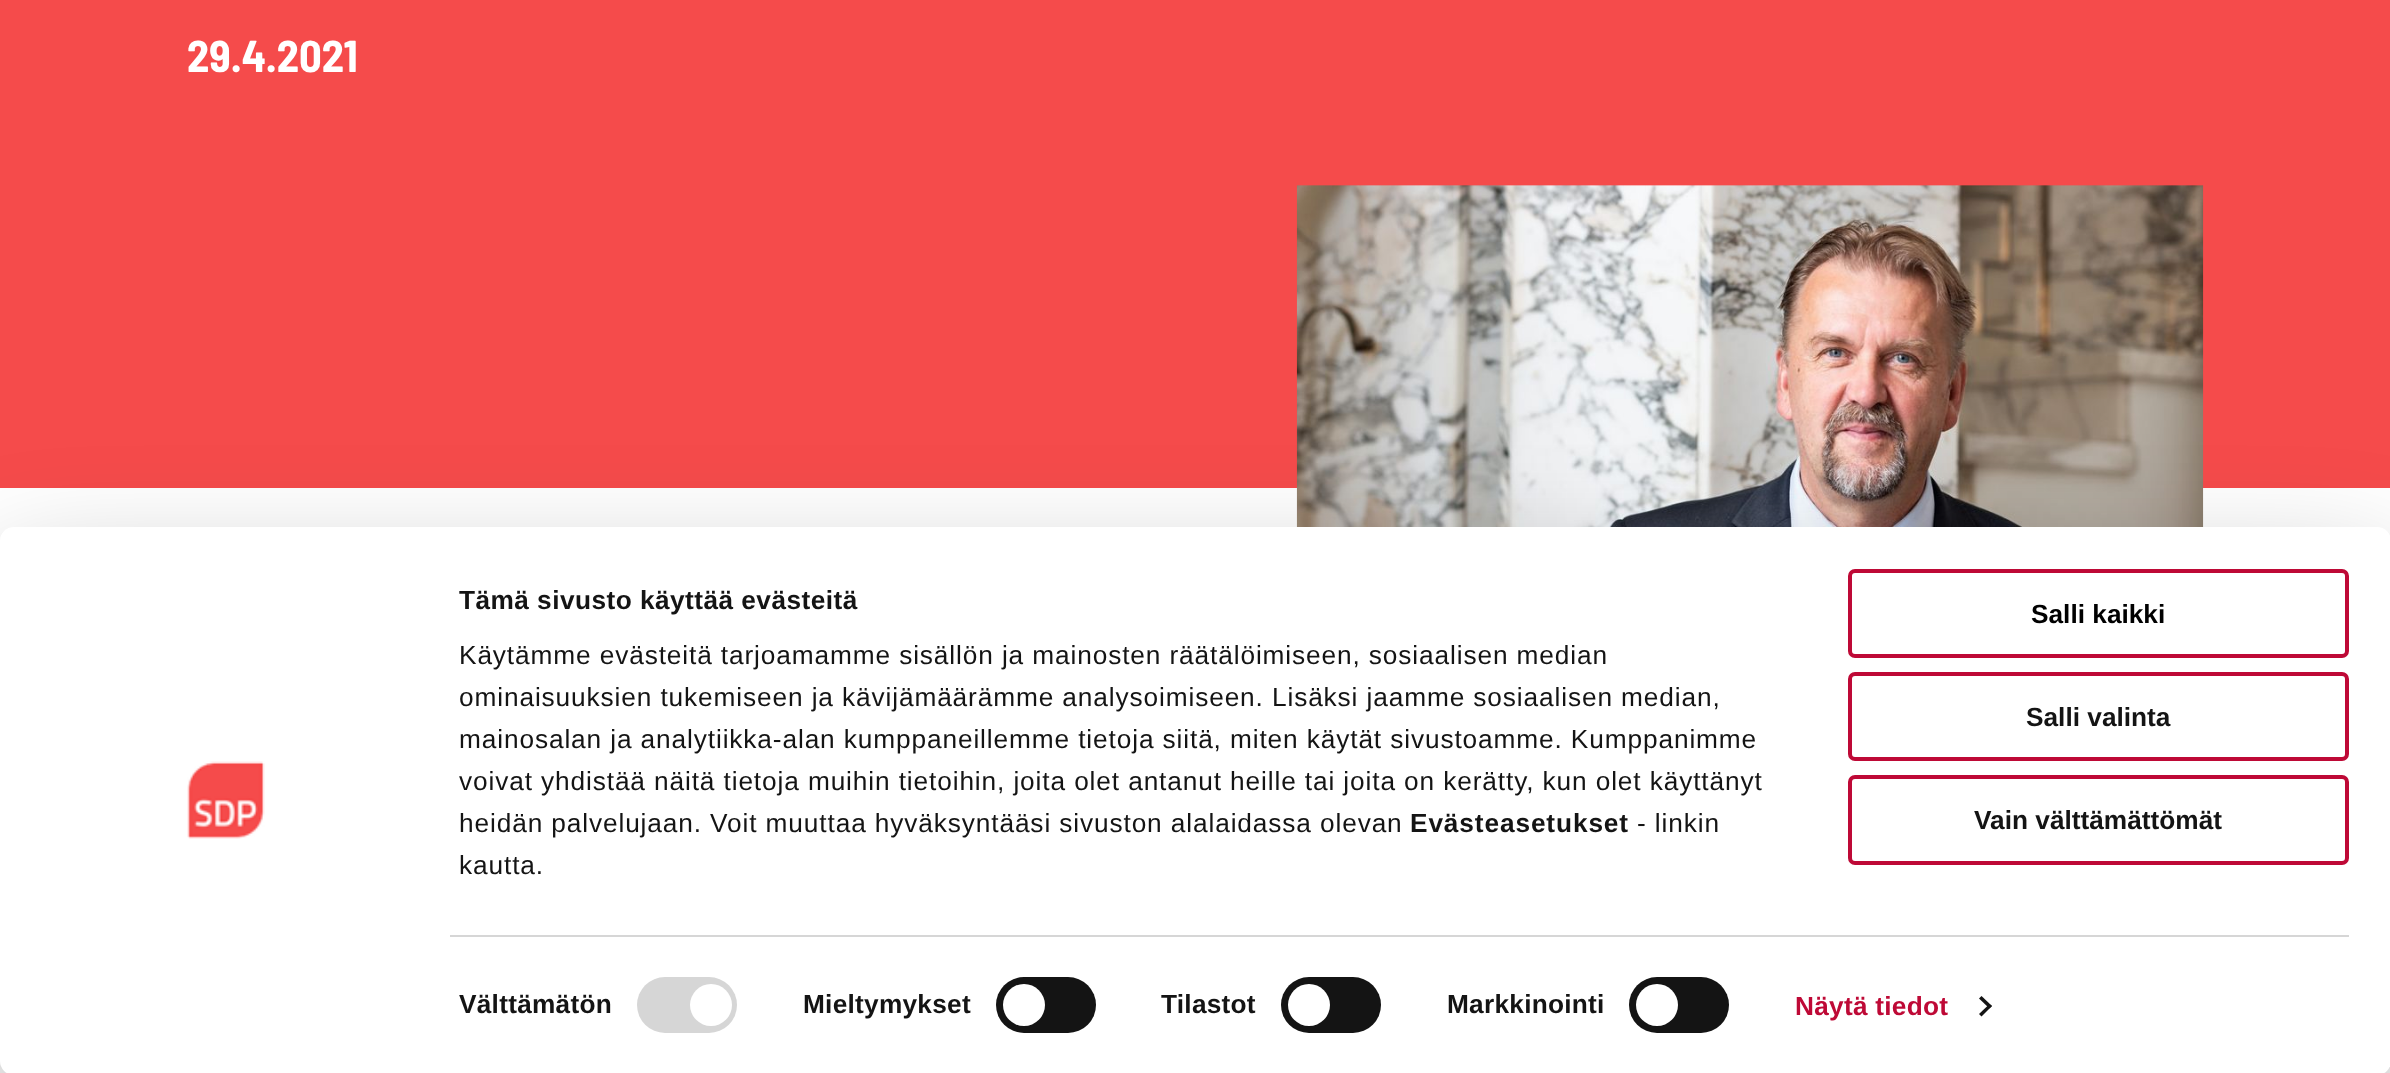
<svg xmlns="http://www.w3.org/2000/svg" width="2390" height="1073" viewBox="0 0 2390 1073">
  <rect width="100%" height="100%" fill="#fff"/>
  <path d="M0 0h2390v488H0z" fill="#f54b4b"/>
  <image x="1296" y="185" width="908" height="342" href="img/1.png"/>
  <rect y="579" width="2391" height="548" rx="14" fill="#0000004d" filter="blur(61px)"/>
  <rect y="527" width="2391" height="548" rx="14" fill="#fff"/>
  <image x="187" y="761" width="78" height="78" href="img/2.png"/>
  <path d="M450 935h1899v2H450z" fill="#d6d6d6"/>
  <rect x="637" y="977" width="100" height="56" rx="28" fill="#d6d6d6"/>
  <circle cx="711" cy="1005" r="21" fill="#fff"/>
  <rect x="996" y="977" width="100" height="56" rx="28" fill="#141414"/>
  <circle cx="1024" cy="1005" r="21" fill="#fff"/>
  <rect x="1281" y="977" width="100" height="56" rx="28" fill="#141414"/>
  <circle cx="1309" cy="1005" r="21" fill="#fff"/>
  <rect x="1629" y="977" width="100" height="56" rx="28" fill="#141414"/>
  <circle cx="1657" cy="1005" r="21" fill="#fff"/>
  <path d="M1981.5 996L1992 1006L1989.5 1008.5L1979 998.5Z" fill="#141414"/>
  <path d="M1989.5 1004L1992 1006L1981.5 1016.5L1979 1014Z" fill="#141414"/>
  <rect x="1850" y="571" width="497" height="85" rx="5" fill="none" stroke="#be0936" stroke-width="4"/>
  <rect x="1850" y="674" width="497" height="85" rx="5" fill="none" stroke="#be0936" stroke-width="4"/>
  <rect x="1850" y="777" width="497" height="86" rx="5" fill="none" stroke="#be0936" stroke-width="4"/>
  <text x="187" y="72" font-family="Barlow Semi Condensed" font-size="44.5" font-weight="bold" fill="#fff">29.4.2021</text>
  <text x="459" y="609" font-family="Liberation Sans" font-size="26.25" font-weight="bold" letter-spacing="0.45" fill="#141414">Tämä sivusto käyttää evästeitä</text>
  <g font-family="Liberation Sans" font-size="26.25" letter-spacing="0.88" fill="#141414">
    <text x="459" y="664">Käytämme evästeitä tarjoamamme sisällön ja mainosten räätälöimiseen, sosiaalisen median</text>
    <text x="459" y="706">ominaisuuksien tukemiseen ja kävijämäärämme analysoimiseen. Lisäksi jaamme sosiaalisen median,</text>
    <text x="459" y="748">mainosalan ja analytiikka-alan kumppaneillemme tietoja siitä, miten käytät sivustoamme. Kumppanimme</text>
    <text x="459" y="790">voivat yhdistää näitä tietoja muihin tietoihin, joita olet antanut heille tai joita on kerätty, kun olet käyttänyt</text>
    <text x="459" y="832">heidän palvelujaan. Voit muuttaa hyväksyntääsi sivuston alalaidassa olevan</text>
  </g>
  <text x="1410" y="832" font-family="Liberation Sans" font-size="26.25" font-weight="bold" letter-spacing="0.88" fill="#141414">Evästeasetukset</text>
  <g font-family="Liberation Sans" font-size="26.25" letter-spacing="0.88" fill="#141414">
    <text x="1637" y="832">- linkin</text>
    <text x="459" y="874">kautta.</text>
  </g>
  <g font-family="Liberation Sans" font-size="26.25" font-weight="bold" letter-spacing="0.25" fill="#141414">
    <text x="459" y="1013">Välttämätön</text>
    <text x="803" y="1013">Mieltymykset</text>
    <text x="1161" y="1013">Tilastot</text>
    <text x="1447" y="1013">Markkinointi</text>
  </g>
  <text x="1795" y="1015" font-family="Liberation Sans" font-size="26.25" font-weight="bold" letter-spacing="0.25" fill="#be0936">Näytä tiedot</text>
  <text x="2031" y="623" font-family="Liberation Sans" font-size="26.25" font-weight="bold" fill="#000">Salli kaikki</text>
  <g font-family="Liberation Sans" font-size="26.25" font-weight="bold" fill="#141414">
    <text x="2026" y="726">Salli valinta</text>
    <text x="1974" y="829">Vain välttämättömät</text>
  </g>
</svg>
